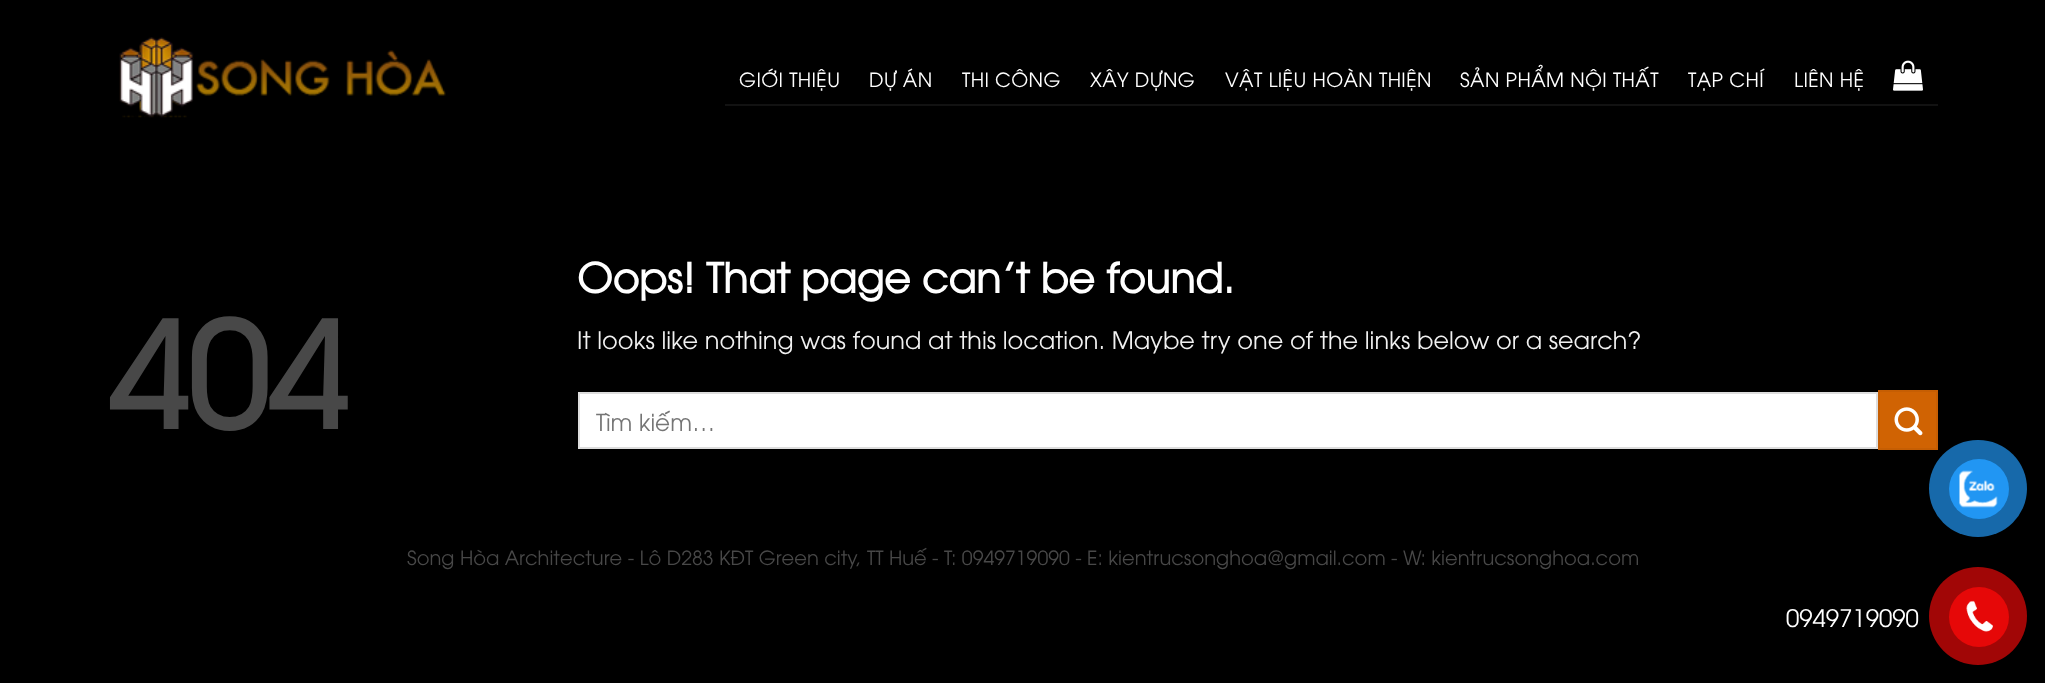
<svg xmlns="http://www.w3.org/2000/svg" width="2045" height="683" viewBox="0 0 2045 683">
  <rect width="100%" height="100%" fill="#000"/>
  <image x="119" y="37" width="327" height="81" href="img/1.png"/>
  <path d="M725 104h1213v2H725z" fill="#121212"/>
  <image x="1893" y="60" width="30" height="31" href="img/2.png"/>
  <path d="M579 393h1298v55H579z" fill="#fff" stroke="#ddd" stroke-width="2"/>
  <path d="M1879 391h58v58H1879z" fill="#d06303" stroke="#c65e03" stroke-width="2"/>
  <image x="1894" y="407" width="29" height="29" href="img/3.png"/>
  <rect x="1929" y="440" width="98" height="97" rx="48.5" fill="#1769aa"/>
  <circle cx="1979" cy="489" r="30" fill="#2196f3"/>
  <image x="1959" y="470" width="39" height="38" href="img/4.png"/>
  <circle cx="1978" cy="616" r="49" fill="#a10606"/>
  <circle cx="1979" cy="617" r="30" fill="#e60808"/>
  <image x="1966" y="600" width="27" height="32" href="img/5.png"/>
  <g font-family="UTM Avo" font-size="19.5" letter-spacing="0.4" fill="#fff">
    <text x="739" y="87">GIỚI THIỆU</text>
    <text x="869" y="87">DỰ ÁN</text>
    <text x="962" y="87">THI CÔNG</text>
    <text x="1090" y="87">XÂY DỰNG</text>
    <text x="1225" y="87">VẬT LIỆU HOÀN THIỆN</text>
    <text x="1460" y="87">SẢN PHẨM NỘI THẤT</text>
    <text x="1688" y="87">TẠP CHÍ</text>
    <text x="1794" y="87">LIÊN HỆ</text>
  </g>
  <text x="108" y="429" font-family="UTM Avo" font-size="144" font-weight="bold" fill="#484848">404</text>
  <text x="577" y="293" font-family="UTM Avo" font-size="40.75" font-weight="bold" fill="#fff">Oops! That page can’t be found.</text>
  <text x="577" y="349" font-family="UTM Avo" font-size="24" fill="#f1f1f1">It looks like nothing was found at this location. Maybe try one of the links below or a search?</text>
  <text x="596" y="431" font-family="UTM Avo" font-size="23.25" fill="#757575">Tìm kiếm…</text>
  <text x="407" y="565" font-family="UTM Avo" font-size="19.5" fill="#484848">Song Hòa Architecture - Lô D283 KĐT Green city, TT Huế - T: 0949719090 - E: kientrucsonghoa@gmail.com - W: kientrucsonghoa.com</text>
  <text x="1786" y="627" font-family="UTM Avo" font-size="24" fill="#fff">0949719090</text>
</svg>
